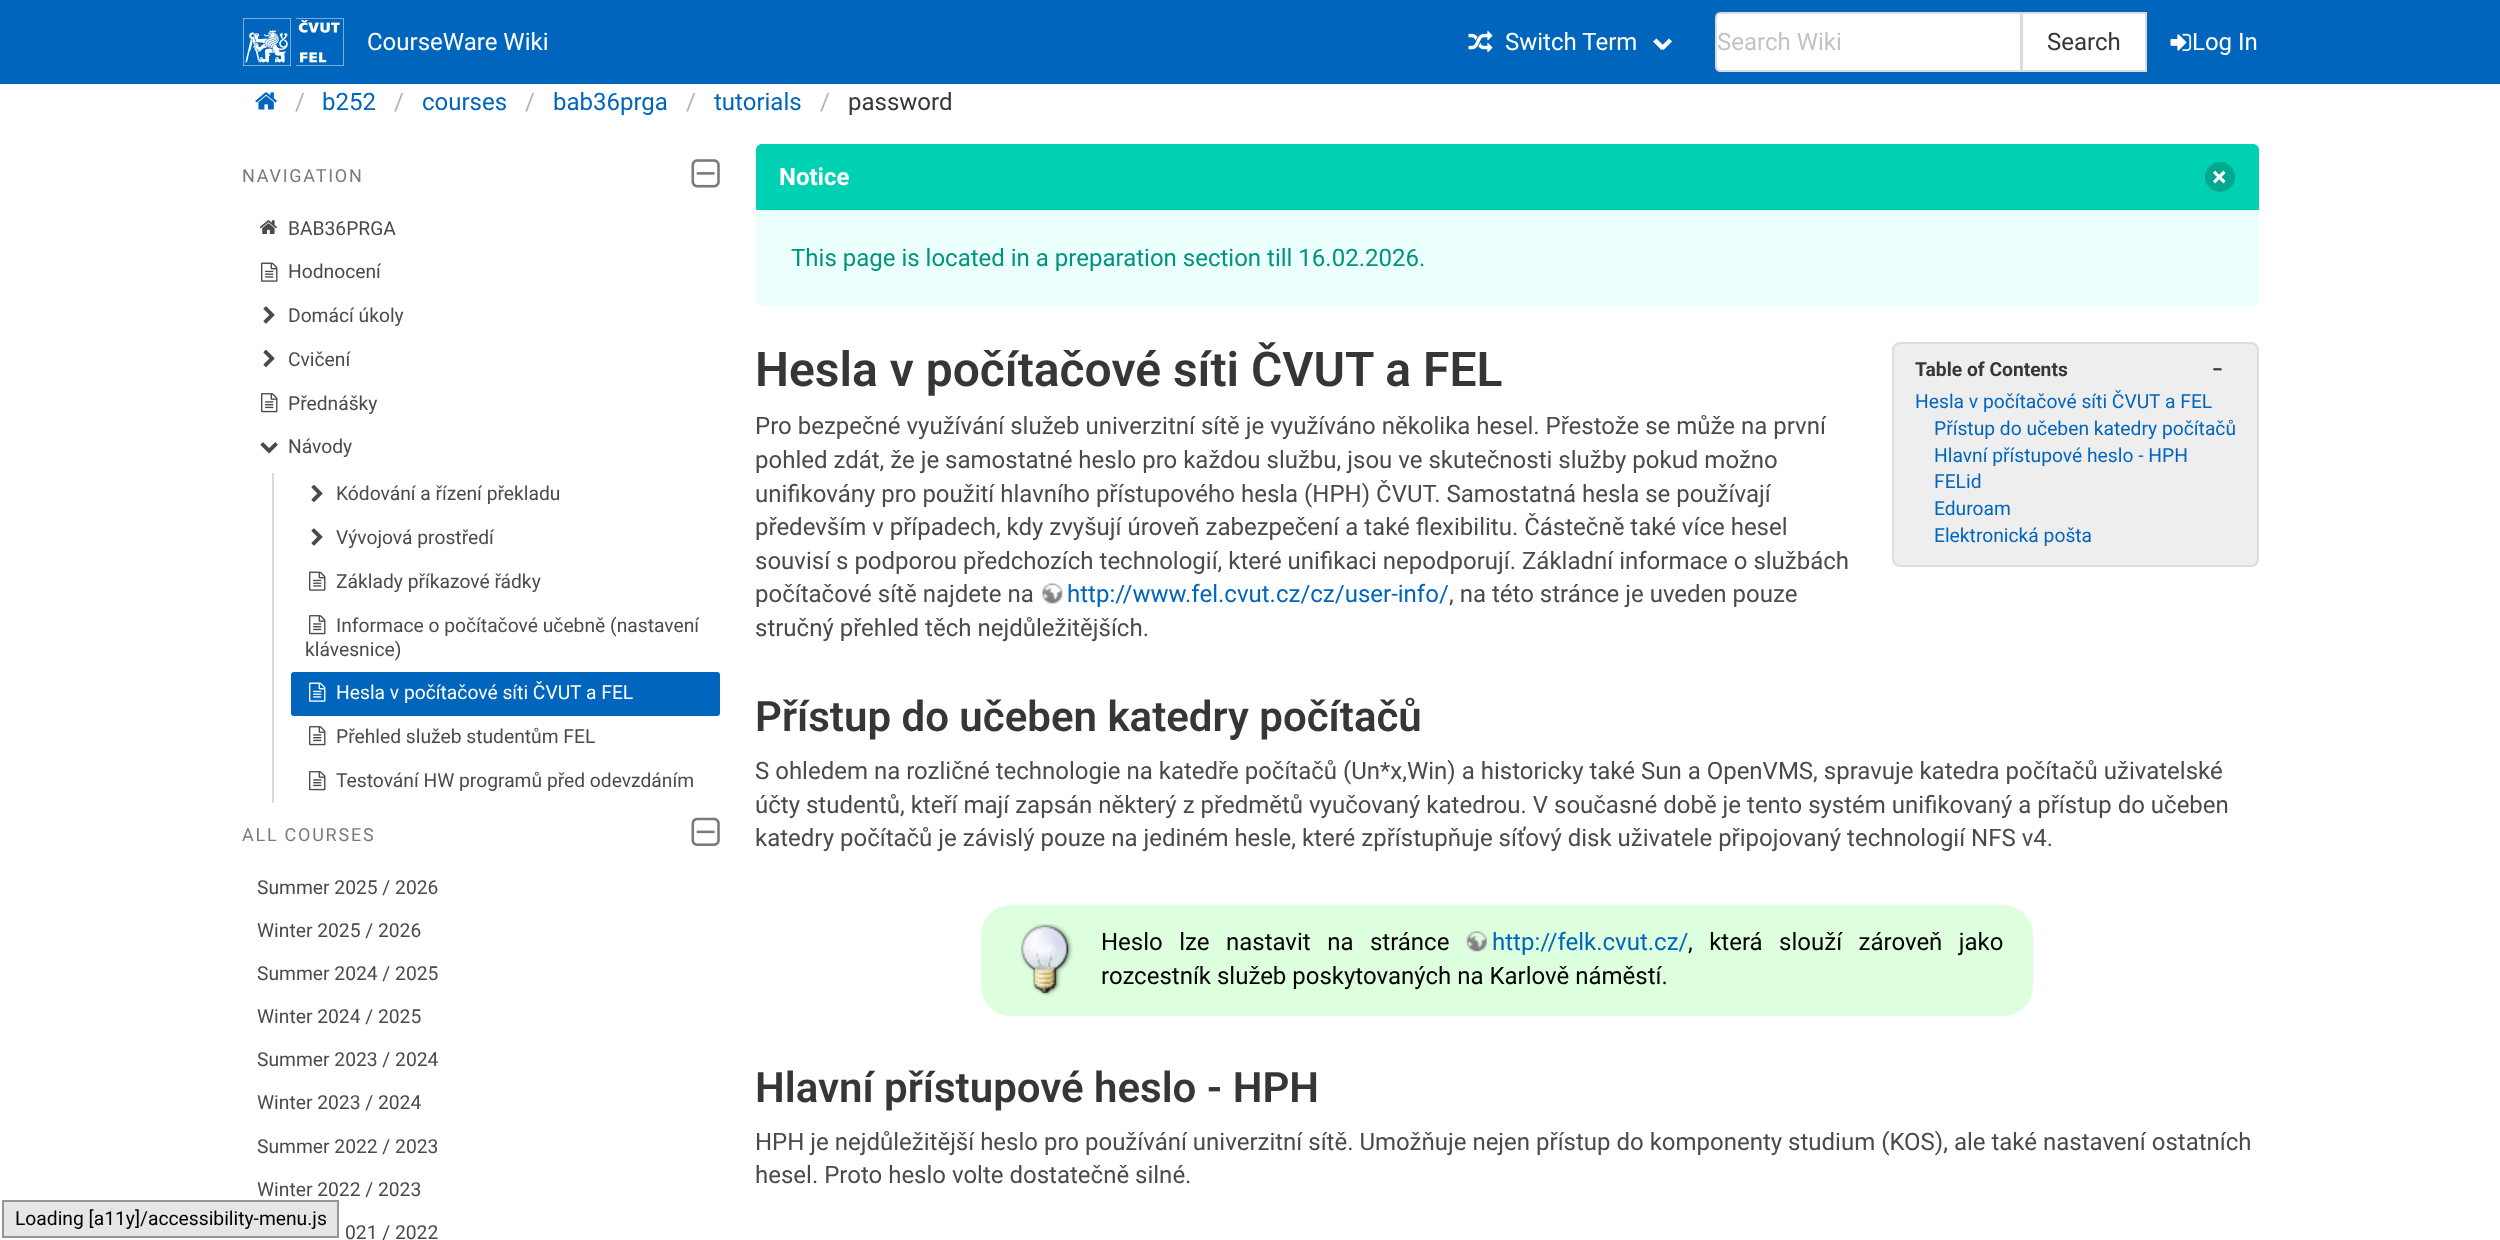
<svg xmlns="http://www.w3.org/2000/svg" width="2500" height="1240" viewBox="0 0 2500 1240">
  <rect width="100%" height="100%" fill="#fff"/>
  <path d="M3 1201h335v36H3z" fill="#e6e6e6" stroke="#959595" stroke-width="2"/>
  <path d="M0 0h2500v84H0z" fill="#0065bd"/>
  <image x="243" y="18" width="48" height="48" href="img/1.png"/>
  <image x="296" y="18" width="48" height="48" href="img/2.png"/>
  <image x="1468" y="30" width="25" height="23" href="img/3.png"/>
  <path d="M1660.5 47L1669 38.5L1672 41.5L1663.5 50Z" fill="#fff"/>
  <path d="M1653 41.5L1656.5 38.5L1665 47L1661.5 50Z" fill="#fff"/>
  <path d="M1721 13H2021V71H1721C1718 71 1716 69 1716 66V18C1716 15 1718 13 1721 13Z" fill="#fff" stroke="#dbdbdb" stroke-width="2"/>
  <path d="M2022 13h124v58H2022z" fill="#fff" stroke="#dbdbdb" stroke-width="2"/>
  <image x="2170" y="33" width="22" height="18" href="img/4.png"/>
  <image x="255" y="92" width="22" height="18" href="img/5.png"/>
  <image x="691" y="159" width="29" height="29" href="img/6.png"/>
  <image x="259" y="220" width="18" height="14" href="img/7.png"/>
  <image x="261" y="262" width="17" height="20" href="img/8.png"/>
  <image x="263" y="306" width="12" height="18" href="img/9.png"/>
  <image x="263" y="349" width="12" height="18" href="img/10.png"/>
  <image x="261" y="393" width="17" height="20" href="img/11.png"/>
  <image x="260" y="442" width="18" height="12" href="img/12.png"/>
  <path d="M272 473h2v330H272z" fill="#dbdbdb"/>
  <image x="311" y="484" width="12" height="18" href="img/10.png"/>
  <image x="311" y="528" width="12" height="18" href="img/9.png"/>
  <image x="309" y="571" width="17" height="20" href="img/8.png"/>
  <image x="309" y="615" width="17" height="20" href="img/11.png"/>
  <rect x="291" y="672" width="429" height="44" rx="3" fill="#0065bd"/>
  <image x="309" y="682" width="17" height="20" href="img/13.png"/>
  <image x="309" y="726" width="17" height="20" href="img/11.png"/>
  <image x="309" y="771" width="17" height="20" href="img/11.png"/>
  <image x="691" y="817" width="29" height="29" href="img/14.png"/>
  <rect x="756" y="144" width="1503" height="162" rx="6" fill="#ebfffc"/>
  <path d="M762 144H2253C2256.5 144 2259 146.5 2259 150V210H756V150C756 146.5 758.5 144 762 144Z" fill="#00d1b2"/>
  <circle cx="2220" cy="177" r="15" fill="#02a990"/>
  <path d="M2215 170.5L2225.5 181L2223.5 183.5L2213 173Z" fill="#fff"/>
  <path d="M2223.5 170.5L2225.5 173L2215 183.5L2213 181Z" fill="#fff"/>
  <rect x="1893" y="343" width="365" height="223" rx="7" fill="#eee" stroke="#ddd" stroke-width="2"/>
  <image x="1042" y="583" width="21" height="22" href="img/15.png"/>
  <rect x="981" y="905" width="1052" height="111" rx="30" fill="#dfd"/>
  <image x="1020" y="924" width="53" height="72" href="img/16.png"/>
  <image x="1466" y="931" width="22" height="22" href="img/17.png"/>
  <text x="15" y="1225" font-family="Roboto" font-size="19.25" fill="#000">Loading [a11y]/accessibility-menu.js</text>
  <g font-family="Roboto" font-size="24" fill="#fff">
    <text x="367" y="50">CourseWare Wiki</text>
    <text x="1505" y="50">Switch Term</text>
  </g>
  <text x="1717" y="50" font-family="Roboto" font-size="24" fill="#c3c3c3">Search Wiki</text>
  <text x="2047" y="50" font-family="Roboto" font-size="24" fill="#363636">Search</text>
  <text x="2192" y="50" font-family="Roboto" font-size="24" fill="#fff">Log In</text>
  <text x="295" y="110" font-family="Roboto" font-size="24" fill="#b5b5b5">/</text>
  <text x="322" y="110" font-family="Roboto" font-size="24" fill="#0065bd">b252</text>
  <text x="394" y="110" font-family="Roboto" font-size="24" fill="#b5b5b5">/</text>
  <text x="422" y="110" font-family="Roboto" font-size="24" fill="#0065bd">courses</text>
  <text x="525" y="110" font-family="Roboto" font-size="24" fill="#b5b5b5">/</text>
  <text x="553" y="110" font-family="Roboto" font-size="24" fill="#0065bd">bab36prga</text>
  <text x="686" y="110" font-family="Roboto" font-size="24" fill="#b5b5b5">/</text>
  <text x="714" y="110" font-family="Roboto" font-size="24" fill="#0065bd">tutorials</text>
  <text x="820" y="110" font-family="Roboto" font-size="24" fill="#b5b5b5">/</text>
  <text x="848" y="110" font-family="Roboto" font-size="24" fill="#363636">password</text>
  <text x="242" y="182" font-family="Roboto" font-size="18" letter-spacing="1.75" fill="#7a7a7a">NAVIGATION</text>
  <g font-family="Roboto" font-size="19.25" fill="#4a4a4a">
    <text x="288" y="235">BAB36PRGA</text>
    <text x="288" y="278">Hodnocení</text>
    <text x="288" y="322">Domácí úkoly</text>
    <text x="288" y="366">Cvičení</text>
    <text x="288" y="410">Přednášky</text>
    <text x="288" y="453">Návody</text>
    <text x="336" y="500">Kódování a řízení překladu</text>
    <text x="336" y="544">Vývojová prostředí</text>
    <text x="336" y="588">Základy příkazové řádky</text>
    <text x="336" y="632">Informace o počítačové učebně (nastavení</text>
    <text x="305" y="656">klávesnice)</text>
  </g>
  <text x="336" y="699" font-family="Roboto" font-size="19.25" fill="#fff">Hesla v počítačové síti ČVUT a FEL</text>
  <g font-family="Roboto" font-size="19.25" fill="#4a4a4a">
    <text x="336" y="743">Přehled služeb studentům FEL</text>
    <text x="336" y="787">Testování HW programů před odevzdáním</text>
  </g>
  <text x="242" y="841" font-family="Roboto" font-size="18" letter-spacing="1.75" fill="#7a7a7a">ALL COURSES</text>
  <g font-family="Roboto" font-size="19.25" fill="#4a4a4a">
    <text x="257" y="894">Summer 2025 / 2026</text>
    <text x="257" y="937">Winter 2025 / 2026</text>
    <text x="257" y="980">Summer 2024 / 2025</text>
    <text x="257" y="1023">Winter 2024 / 2025</text>
    <text x="257" y="1066">Summer 2023 / 2024</text>
    <text x="257" y="1109">Winter 2023 / 2024</text>
    <text x="257" y="1153">Summer 2022 / 2023</text>
    <text x="257" y="1196">Winter 2022 / 2023</text>
    <text x="345" y="1239">021 / 2022</text>
  </g>
  <text x="779" y="185" font-family="Roboto" font-size="24" font-weight="bold" fill="#fff">Notice</text>
  <text x="791" y="266" font-family="Roboto" font-size="24" fill="#00947e">This page is located in a preparation section till 16.02.2026.</text>
  <text x="755" y="386" font-family="Roboto" font-size="48" font-weight="600" fill="#363636">Hesla v počítačové síti ČVUT a FEL</text>
  <g font-family="Roboto" font-size="19.25" font-weight="bold" fill="#363636">
    <text x="1915" y="376">Table of Contents</text>
    <text x="2212" y="376">−</text>
  </g>
  <g font-family="Roboto" font-size="19.25" fill="#0065bd">
    <text x="1915" y="408">Hesla v počítačové síti ČVUT a FEL</text>
    <text x="1934" y="435">Přístup do učeben katedry počítačů</text>
    <text x="1934" y="462">Hlavní přístupové heslo - HPH</text>
    <text x="1934" y="488">FELid</text>
    <text x="1934" y="515">Eduroam</text>
    <text x="1934" y="542">Elektronická pošta</text>
  </g>
  <g font-family="Roboto" font-size="24" fill="#4a4a4a">
    <text x="755" y="434">Pro bezpečné využívání služeb univerzitní sítě je využíváno několika hesel. Přestože se může na první</text>
    <text x="755" y="468">pohled zdát, že je samostatné heslo pro každou službu, jsou ve skutečnosti služby pokud možno</text>
    <text x="755" y="502">unifikovány pro použití hlavního přístupového hesla (HPH) ČVUT. Samostatná hesla se používají</text>
    <text x="755" y="535">především v případech, kdy zvyšují úroveň zabezpečení a také flexibilitu. Částečně také více hesel</text>
    <text x="755" y="569">souvisí s podporou předchozích technologií, které unifikaci nepodporují. Základní informace o službách</text>
    <text x="755" y="602">počítačové sítě najdete na</text>
  </g>
  <text x="1067" y="602" font-family="Roboto" font-size="24" fill="#0065bd">http://www.fel.cvut.cz/cz/user-info/</text>
  <g font-family="Roboto" font-size="24" fill="#4a4a4a">
    <text x="1449" y="602">, na této stránce je uveden pouze</text>
    <text x="755" y="636">stručný přehled těch nejdůležitějších.</text>
  </g>
  <text x="755" y="731" font-family="Roboto" font-size="42" font-weight="600" fill="#363636">Přístup do učeben katedry počítačů</text>
  <g font-family="Roboto" font-size="24" fill="#4a4a4a">
    <text x="755" y="779">S ohledem na rozličné technologie na katedře počítačů (Un*x,Win) a historicky také Sun a OpenVMS, spravuje katedra počítačů uživatelské</text>
    <text x="755" y="813">účty studentů, kteří mají zapsán některý z předmětů vyučovaný katedrou. V současné době je tento systém unifikovaný a přístup do učeben</text>
    <text x="755" y="846">katedry počítačů je závislý pouze na jediném hesle, které zpřístupňuje síťový disk uživatele připojovaný technologií NFS v4.</text>
  </g>
  <text x="1101" y="950" word-spacing="10.5" font-family="Roboto" font-size="24" fill="#000">Heslo lze nastavit na stránce</text>
  <text x="1492" y="950" font-family="Roboto" font-size="24" fill="#0065bd">http://felk.cvut.cz/</text>
  <g font-family="Roboto" font-size="24" fill="#000">
    <text x="1688" y="950" word-spacing="10.5">, která slouží zároveň jako</text>
    <text x="1101" y="984">rozcestník služeb poskytovaných na Karlově náměstí.</text>
  </g>
  <text x="755" y="1102" font-family="Roboto" font-size="42" font-weight="600" fill="#363636">Hlavní přístupové heslo - HPH</text>
  <g font-family="Roboto" font-size="24" fill="#4a4a4a">
    <text x="755" y="1150">HPH je nejdůležitější heslo pro používání univerzitní sítě. Umožňuje nejen přístup do komponenty studium (KOS), ale také nastavení ostatních</text>
    <text x="755" y="1183">hesel. Proto heslo volte dostatečně silné.</text>
  </g>
</svg>
